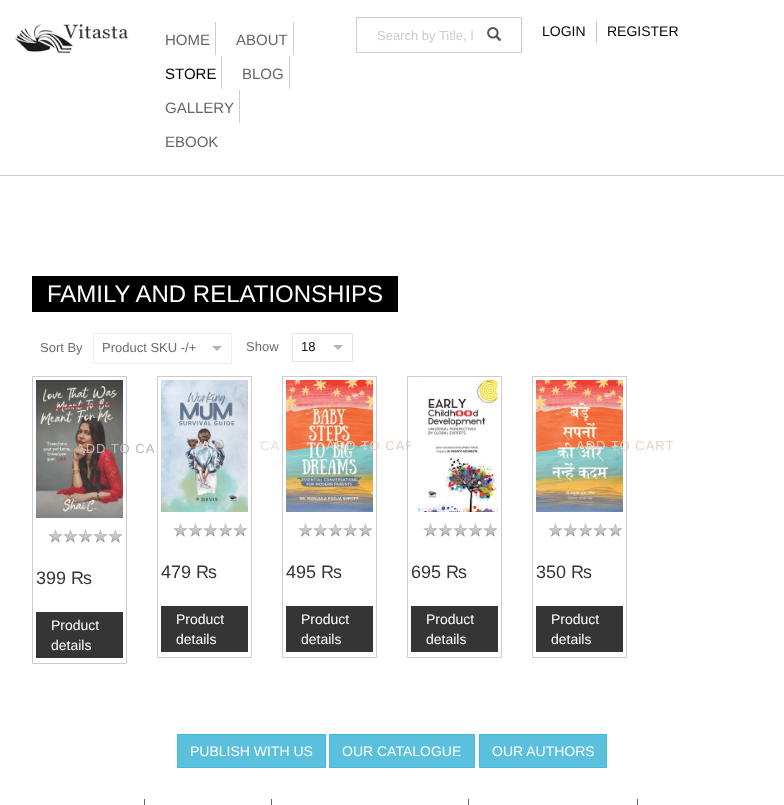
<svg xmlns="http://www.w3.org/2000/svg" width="784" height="805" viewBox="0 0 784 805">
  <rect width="100%" height="100%" fill="#fff"/>
  <path d="M0 175h784v1H0z" fill="#ccc"/>
  <image x="15" y="24" width="114" height="30" href="img/1.png"/>
  <path d="M216 22V56L215 54V22Z" fill="#ccc"/>
  <path d="M294 22V56L293 54V22Z" fill="#ccc"/>
  <path d="M222 56V90L221 88V56Z" fill="#ccc"/>
  <path d="M290 56V90L289 88V56Z" fill="#ccc"/>
  <path d="M240 90V124L239 122V90Z" fill="#ccc"/>
  <path d="M356.5 17.5h165v35H356.5z" fill="none" stroke="#ccc"/>
  <image x="487" y="27" width="15" height="14" href="img/2.png"/>
  <path d="M596 22h1v20H596z" fill="#c6c6c6"/>
  <path d="M32 276h366v36H32z" fill="#000"/>
  <image x="212" y="346" width="10" height="5" href="img/3.png"/>
  <path d="M93.5 333.5h138v30H93.5z" fill="none" stroke="#eee"/>
  <image x="333" y="345" width="10" height="5" href="img/3.png"/>
  <path d="M292.5 333.5h60v28H292.5z" fill="none" stroke="#e6e6e1"/>
  <path d="M32.5 376.5h94v287H32.5z" fill="none" stroke="#ccc"/>
  <image x="36" y="380" width="87" height="138" href="img/4.png"/>
  <image x="48" y="529" width="75" height="14" href="img/5.png"/>
  <path d="M36 612h87v46H36z" fill="#353535"/>
  <path d="M157.5 376.5h94v281H157.5z" fill="none" stroke="#ccc"/>
  <image x="161" y="380" width="87" height="132" href="img/6.png"/>
  <image x="173" y="523" width="75" height="14" href="img/5.png"/>
  <path d="M161 606h87v46H161z" fill="#353535"/>
  <path d="M282.5 376.5h94v281H282.5z" fill="none" stroke="#ccc"/>
  <image x="286" y="380" width="87" height="132" href="img/7.png"/>
  <image x="298" y="523" width="75" height="14" href="img/5.png"/>
  <path d="M286 606h87v46H286z" fill="#353535"/>
  <path d="M532.5 376.5h94v281H532.5z" fill="none" stroke="#ccc"/>
  <image x="536" y="380" width="87" height="132" href="img/9.png"/>
  <image x="548" y="523" width="75" height="14" href="img/5.png"/>
  <path d="M536 606h87v46H536z" fill="#353535"/>
  <path d="M177.5 734.5h148v33H177.5z" fill="#5bc0de" stroke="#46b8da"/>
  <path d="M329.5 734.5h145v33H329.5z" fill="#5bc0de" stroke="#46b8da"/>
  <path d="M479.5 734.5h127v33H479.5z" fill="#5bc0de" stroke="#46b8da"/>
  <path d="M144 799h1v6H144z" fill="#666"/>
  <path d="M271 799h1v6H271z" fill="#666"/>
  <path d="M468 799h1v6H468z" fill="#666"/>
  <path d="M637 799h1v6H637z" fill="#666"/>
  <g font-family="Liberation Sans" font-size="15" fill="#666">
    <text x="165" y="45">HOME</text>
    <text x="236" y="45">ABOUT</text>
  </g>
  <text x="165" y="79" font-family="Liberation Sans" font-size="15" fill="#000">STORE</text>
  <g font-family="Liberation Sans" font-size="15" fill="#666">
    <text x="242" y="79">BLOG</text>
    <text x="165" y="113">GALLERY</text>
    <text x="165" y="147">EBOOK</text>
  </g>
  <text x="377" y="40" font-family="Liberation Sans" font-size="13" fill="#ccc">Search by Title, I</text>
  <g font-family="Liberation Sans" font-size="14" fill="#000">
    <text x="542" y="36">LOGIN</text>
    <text x="607" y="36">REGISTER</text>
  </g>
  <text x="47" y="302" font-family="Liberation Sans" font-size="24" fill="#fff">FAMILY AND RELATIONSHIPS</text>
  <g font-family="Liberation Sans" font-size="13" fill="#6e6e6e">
    <text x="40" y="352">Sort By</text>
    <text x="102" y="352">Product SKU -/+</text>
    <text x="246" y="351">Show</text>
  </g>
  <text x="301" y="351" font-family="Liberation Sans" font-size="13" fill="#111">18</text>
  <text x="76" y="453" font-family="Liberation Sans" font-size="13" letter-spacing="1" fill="#c1b6b1">ADD TO CA</text>
  <text x="36" y="584" font-family="Liberation Sans" font-size="18" fill="#353535">399 ₨</text>
  <g font-family="Liberation Sans" font-size="14" fill="#fff">
    <text x="51" y="630">Product</text>
    <text x="51" y="650">details</text>
  </g>
  <g font-family="Liberation Sans" font-size="13" letter-spacing="1" fill="#dfe1e5">
    <text x="201" y="450">A</text>
    <text x="260" y="450">CA</text>
  </g>
  <text x="161" y="578" font-family="Liberation Sans" font-size="18" fill="#353535">479 ₨</text>
  <g font-family="Liberation Sans" font-size="14" fill="#fff">
    <text x="176" y="624">Product</text>
    <text x="176" y="644">details</text>
  </g>
  <text x="326" y="450" font-family="Liberation Sans" font-size="13" letter-spacing="1" fill="#e3d2c6">ADD TO CAR</text>
  <text x="286" y="578" font-family="Liberation Sans" font-size="18" fill="#353535">495 ₨</text>
  <g font-family="Liberation Sans" font-size="14" fill="#fff">
    <text x="301" y="624">Product</text>
    <text x="301" y="644">details</text>
  </g>
  <path d="M407.5 376.5h94v281H407.5z" fill="none" stroke="#ccc"/>
  <image x="411" y="380" width="87" height="132" href="img/8.png"/>
  <image x="423" y="523" width="75" height="14" href="img/5.png"/>
  <text x="411" y="578" font-family="Liberation Sans" font-size="18" fill="#353535">695 ₨</text>
  <path d="M411 606h87v46H411z" fill="#353535"/>
  <g font-family="Liberation Sans" font-size="14" fill="#fff">
    <text x="426" y="624">Product</text>
    <text x="426" y="644">details</text>
  </g>
  <text x="576" y="450" font-family="Liberation Sans" font-size="13" letter-spacing="1" fill="#ebcebf">ADD TO CART</text>
  <text x="536" y="578" font-family="Liberation Sans" font-size="18" fill="#353535">350 ₨</text>
  <g font-family="Liberation Sans" font-size="14" fill="#fff">
    <text x="551" y="624">Product</text>
    <text x="551" y="644">details</text>
    <text x="190" y="756">PUBLISH WITH US</text>
    <text x="342" y="756">OUR CATALOGUE</text>
    <text x="492" y="756">OUR AUTHORS</text>
  </g>
</svg>
